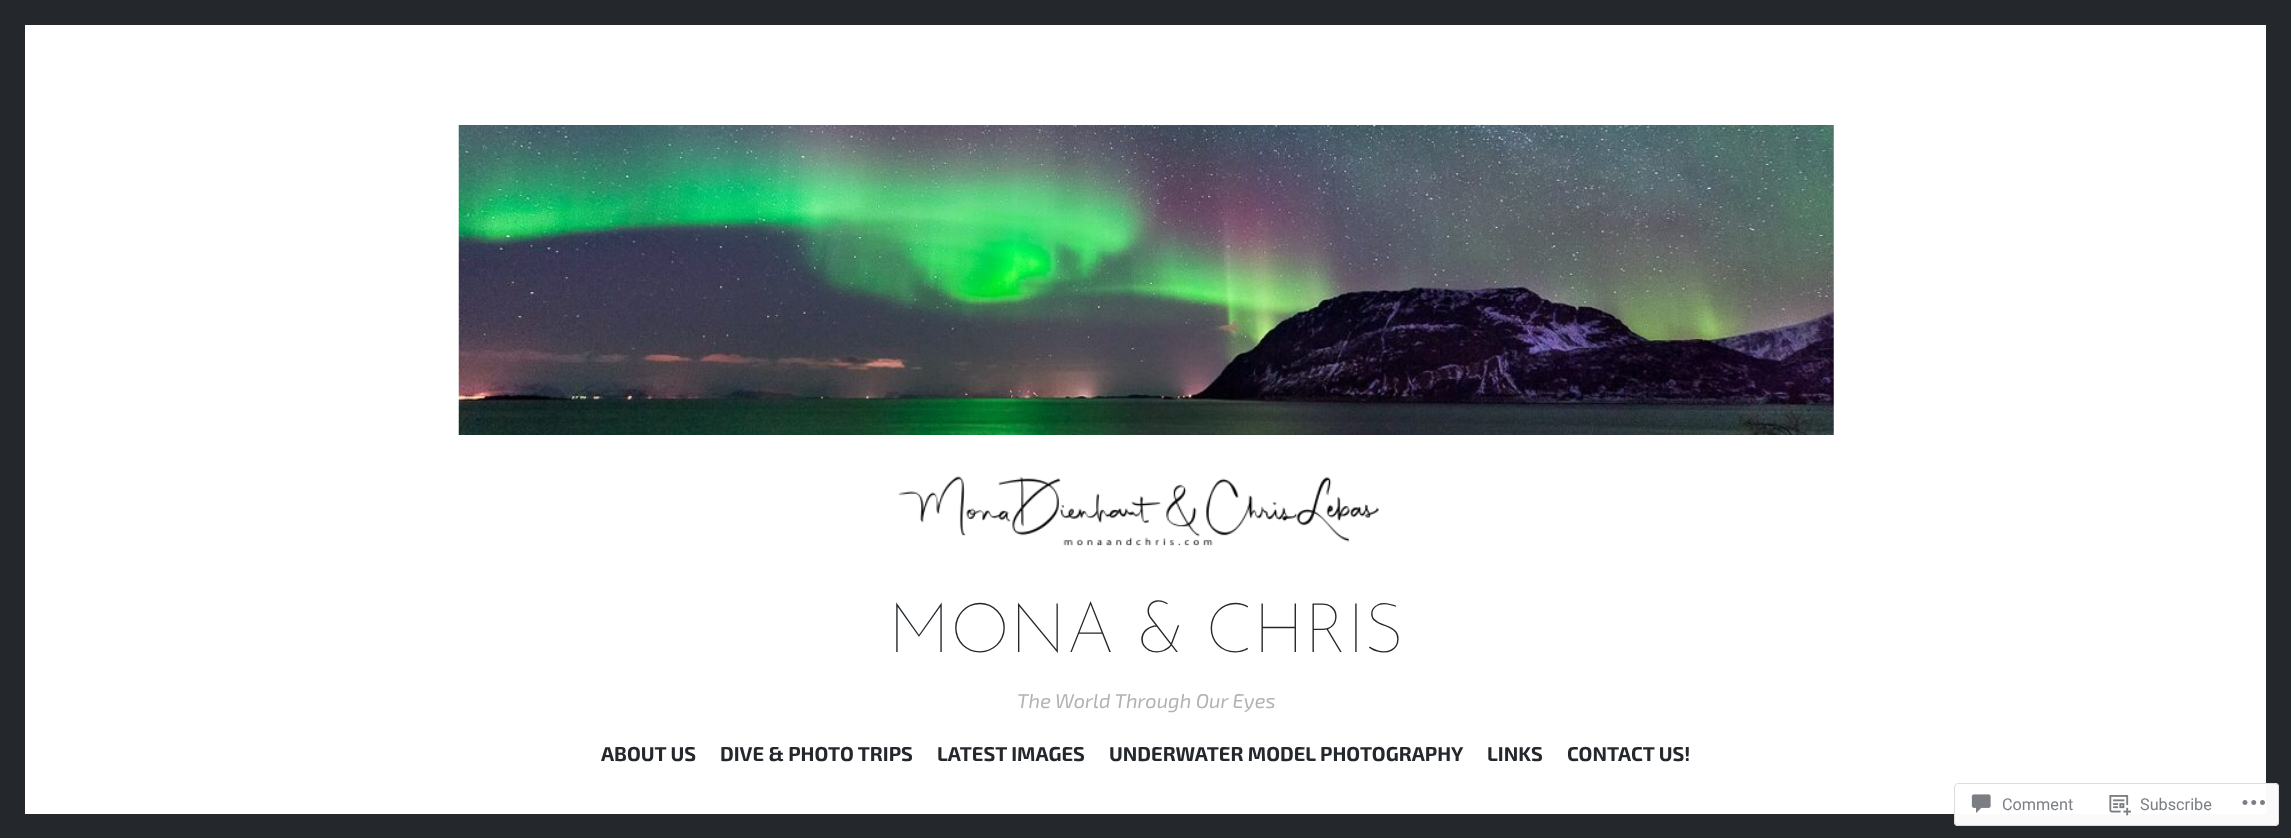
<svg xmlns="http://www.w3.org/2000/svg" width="2291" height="838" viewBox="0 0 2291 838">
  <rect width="100%" height="100%" fill="#24282d"/>
  <path d="M25 25h2241v789H25z" fill="#fff"/>
  <image x="458" y="125" width="1376" height="310" href="img/1.png"/>
  <image x="898" y="476" width="481" height="70" href="img/2.png"/>
  <rect x="1954" y="783" width="325" height="43" rx="4" fill="#fffffffa"/>
  <rect x="1954.5" y="783.5" width="324" height="42" rx="3.5" fill="none" stroke="#dcdcdefa"/>
  <image x="1971" y="794" width="20" height="19" href="img/3.png"/>
  <image x="2109" y="795" width="22" height="21" href="img/4.png"/>
  <image x="2242" y="800" width="23" height="5" href="img/5.png"/>
  <text x="888" y="652" font-family="Josefin Sans" font-size="69.25" font-weight="100" fill="#24282d">MONA &amp; CHRIS</text>
  <text x="1017" y="708" font-family="'Exo 2'" font-size="20.1" font-style="italic" fill="#b1b2b3">The World Through Our Eyes</text>
  <g font-family="'Exo 2'" font-size="20.1" font-weight="bold" fill="#24282d">
    <text x="601" y="761">ABOUT US</text>
    <text x="720" y="761">DIVE &amp; PHOTO TRIPS</text>
    <text x="937" y="761">LATEST IMAGES</text>
    <text x="1109" y="761">UNDERWATER MODEL PHOTOGRAPHY</text>
    <text x="1487" y="761">LINKS</text>
    <text x="1567" y="761">CONTACT US!</text>
  </g>
  <g font-family="Roboto" font-size="16.25" fill="#7b7f85">
    <text x="2002" y="810">Comment</text>
    <text x="2140" y="810">Subscribe</text>
  </g>
</svg>
